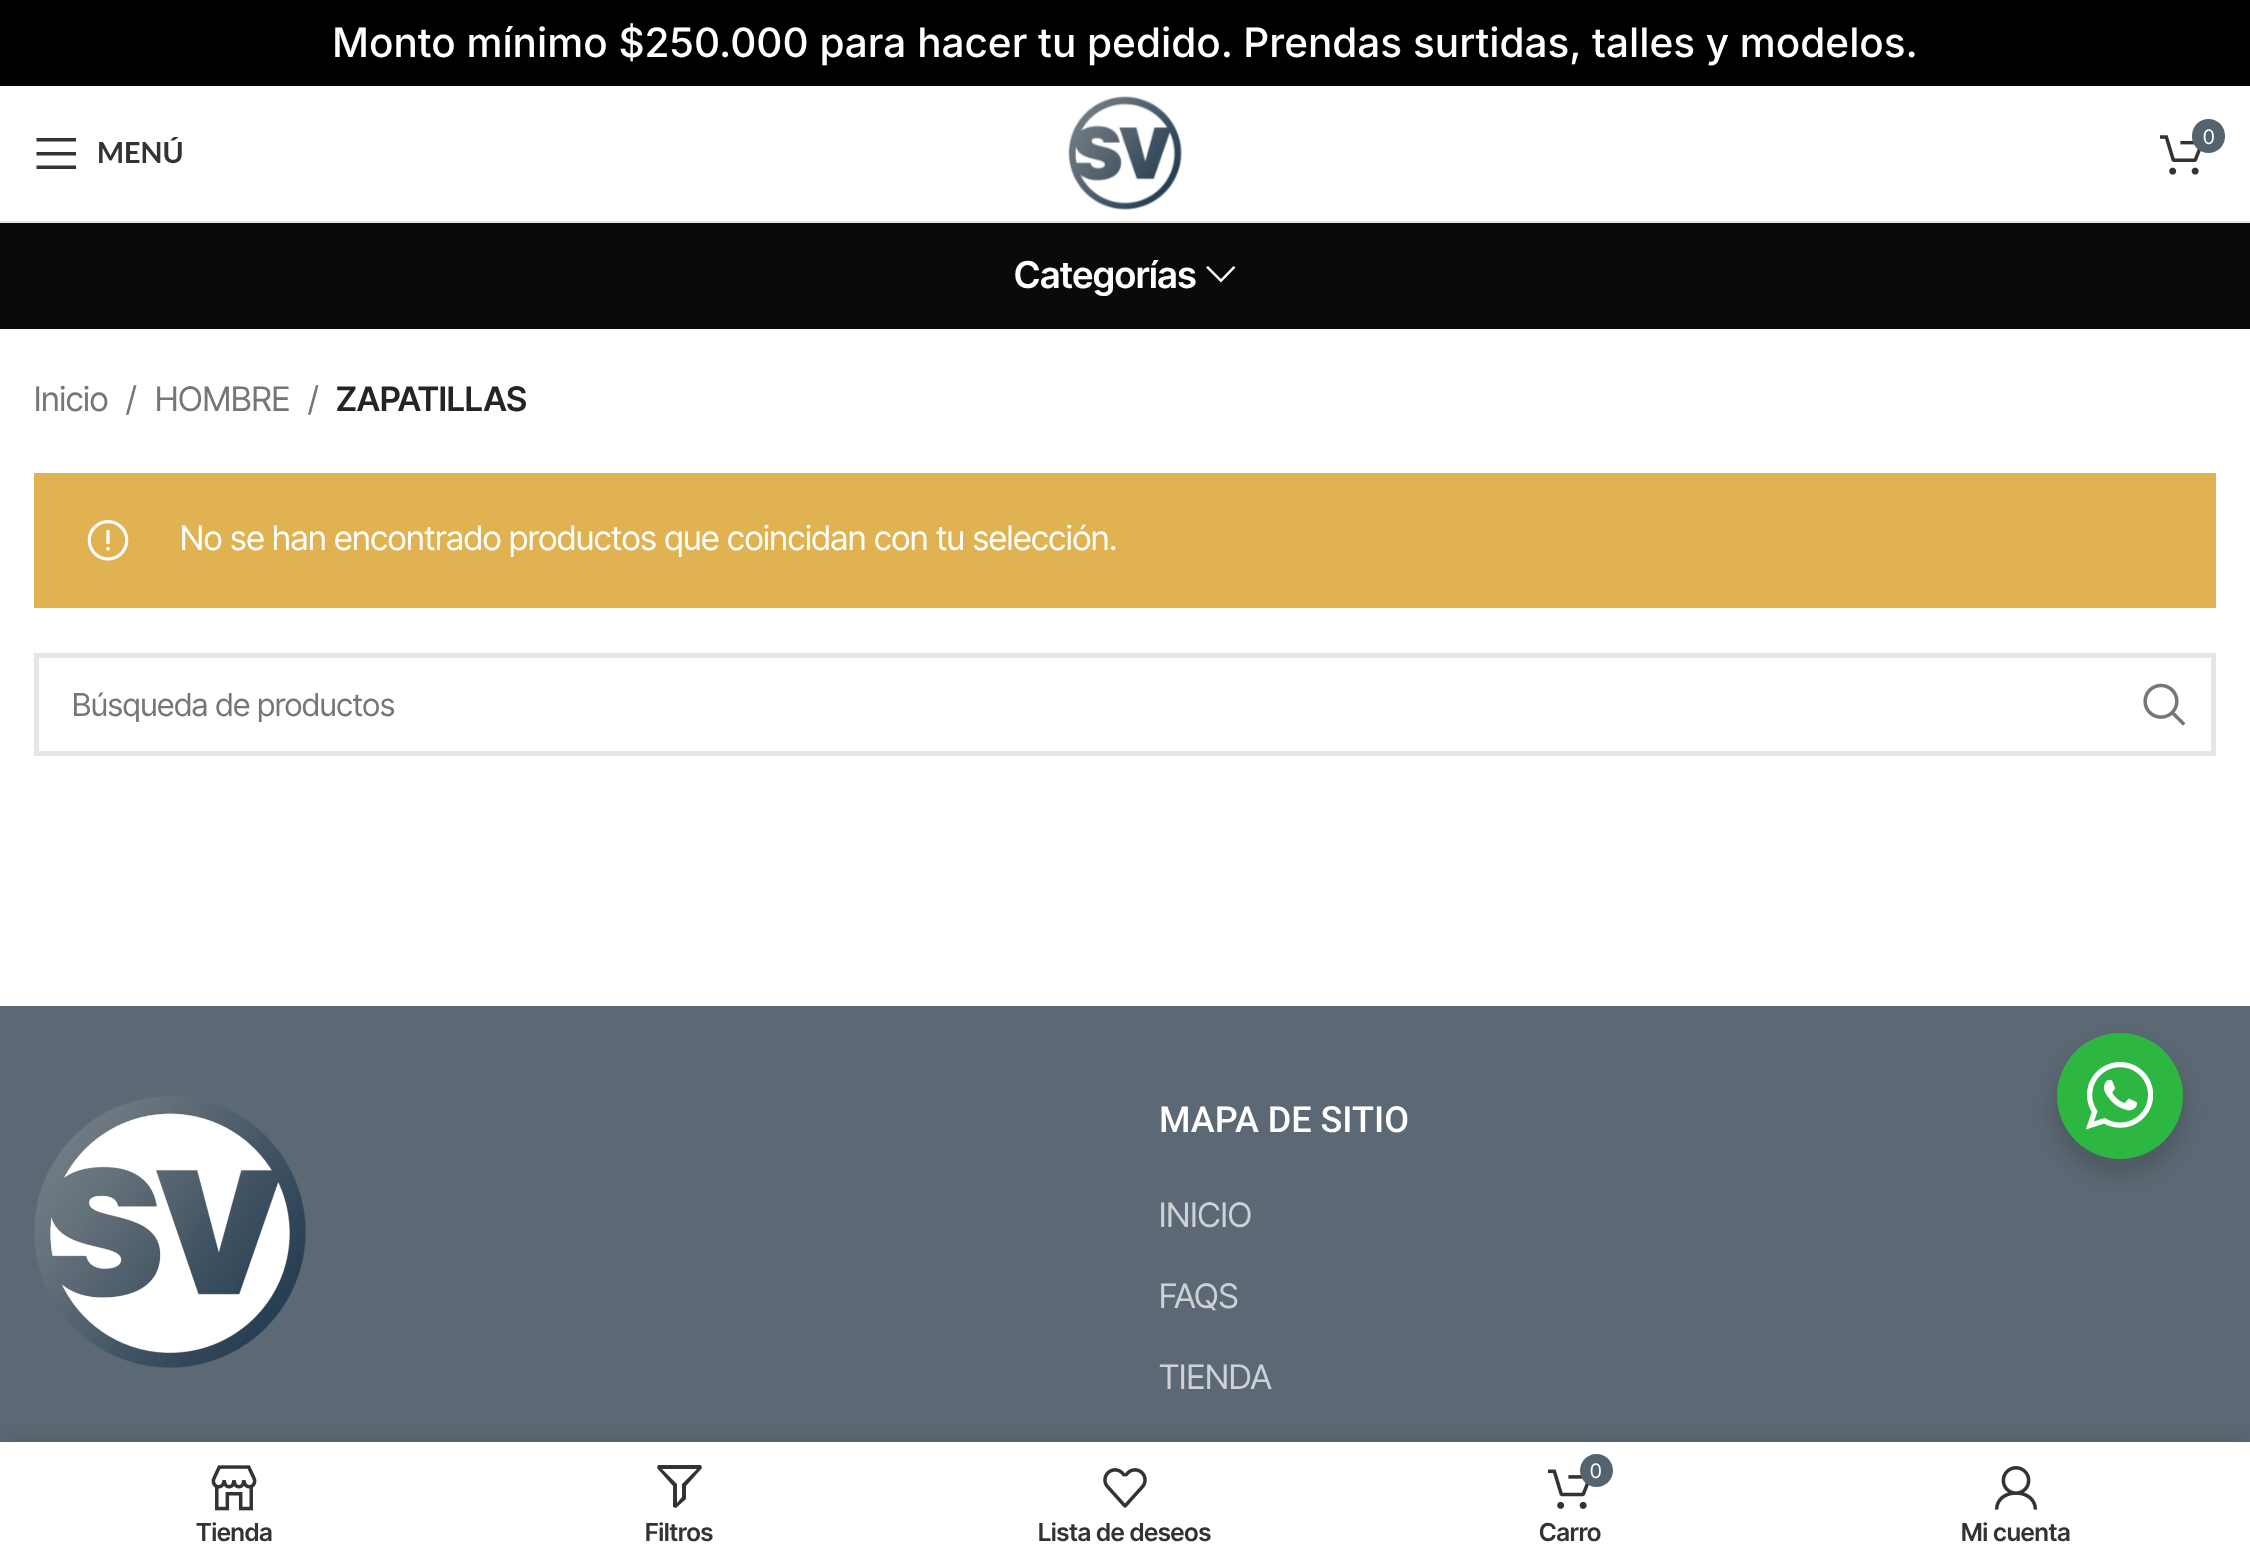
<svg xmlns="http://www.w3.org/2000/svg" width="2250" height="1566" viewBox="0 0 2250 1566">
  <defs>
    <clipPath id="clip1"><path d="M72 684h1969v38H72z"/></clipPath>
  </defs>
  <rect width="100%" height="100%" fill="#fff"/>
  <path d="M0 0h2250v86H0z" fill="#000"/>
  <path d="M0 221h2250v2H0z" fill="#e6e6e6"/>
  <path d="M36.5 141.5H76V138H36.5ZM36.5 155.5H76V152H36.5ZM36.5 169H76V165.5H36.5Z" fill="#333"/>
  <image x="1068" y="96" width="114" height="114" href="img/1.png"/>
  <image x="2160" y="135" width="41" height="40" href="img/2.png"/>
  <rect x="2192" y="119" width="33" height="34" rx="16.5" fill="#53636f"/>
  <path d="M0 223h2250v106H0z" fill="#0a0a0a"/>
  <path d="M1233.5 266L1221 279L1208 266L1206 267.5L1221 282.5L1235.5 267.5Z" fill="#fff"/>
  <path d="M34 473h2182v135H34z" fill="#e0b252"/>
  <image x="87" y="520" width="42" height="41" href="img/3.png"/>
  <path d="M36.5 655.5h2177v98H36.5z" fill="none" stroke="#e6e6e6" stroke-width="5"/>
  <image x="2143" y="683" width="43" height="43" href="img/4.png"/>
  <path d="M0 1006h2250v436H0z" fill="#5c6974"/>
  <image x="34" y="1096" width="272" height="272" href="img/5.png"/>
  <rect x="2052" y="1042" width="135" height="135" rx="67.5" fill="#00000024" filter="blur(9px)"/>
  <circle cx="2120" cy="1096" r="63" fill="#2db742"/>
  <image x="2086" y="1062" width="67" height="68" href="img/6.png"/>
  <path d="M0 1442h2250v124H0z" fill="#0000001f" filter="blur(10px)"/>
  <path d="M0 1442h2250v124H0z" fill="#fff"/>
  <image x="211" y="1465" width="46" height="46" href="img/7.png"/>
  <path d="M658 1465L657 1468L673 1486V1507L676 1508L686 1499V1486L702 1468L701 1465ZM662 1469H697L682 1484V1497L677 1503V1484Z" fill="#333"/>
  <image x="1103" y="1468" width="44" height="40" href="img/8.png"/>
  <image x="1548" y="1469" width="41" height="40" href="img/9.png"/>
  <circle cx="1596.5" cy="1470.5" r="16.5" fill="#53636f"/>
  <image x="1994" y="1466" width="44" height="44" href="img/10.png"/>
  <text x="332" y="57" font-family="Inter" font-size="40.5" font-weight="500" fill="#fff">Monto mínimo $250.000 para hacer tu pedido. Prendas surtidas, talles y modelos.</text>
  <text x="97" y="163" font-family="Lato" font-size="29" font-weight="bold" fill="#333">MENÚ</text>
  <text x="2203" y="144" font-family="Inter Tight" font-size="20" fill="#fff">0</text>
  <text x="1014" y="288" font-family="Inter Tight" font-size="37" font-weight="600" fill="#fff">Categorías</text>
  <g font-family="Inter Tight" font-size="33.75" fill="#767676">
    <text x="34" y="411">Inicio</text>
    <text x="126" y="411">/</text>
    <text x="155" y="411">HOMBRE</text>
    <text x="308" y="411">/</text>
  </g>
  <text x="336" y="411" font-family="Inter Tight" font-size="33.75" font-weight="600" fill="#242424">ZAPATILLAS</text>
  <text x="180" y="550" font-family="Inter Tight" font-size="33.75" fill="#fff">No se han encontrado productos que coincidan con tu selección.</text>
  <g clip-path="url(#clip1)">
    <text x="72" y="716" font-family="Inter Tight" font-size="31.5" fill="#767676">Búsqueda de productos</text>
  </g>
  <text x="1159" y="1132" font-family="Roboto" font-size="36" font-weight="500" fill="#fff">MAPA DE SITIO</text>
  <g font-family="Inter Tight" font-size="33.75" fill="#ced2d5">
    <text x="1159" y="1227">INICIO</text>
    <text x="1159" y="1308">FAQS</text>
    <text x="1159" y="1389">TIENDA</text>
  </g>
  <g font-family="Inter Tight" font-size="24.75" font-weight="600" fill="#333">
    <text x="196" y="1541">Tienda</text>
    <text x="645" y="1541">Filtros</text>
    <text x="1038" y="1541">Lista de deseos</text>
  </g>
  <text x="1590" y="1478" font-family="Inter Tight" font-size="20" fill="#fff">0</text>
  <g font-family="Inter Tight" font-size="24.75" font-weight="600" fill="#333">
    <text x="1539" y="1541">Carro</text>
    <text x="1961" y="1541">Mi cuenta</text>
  </g>
</svg>
